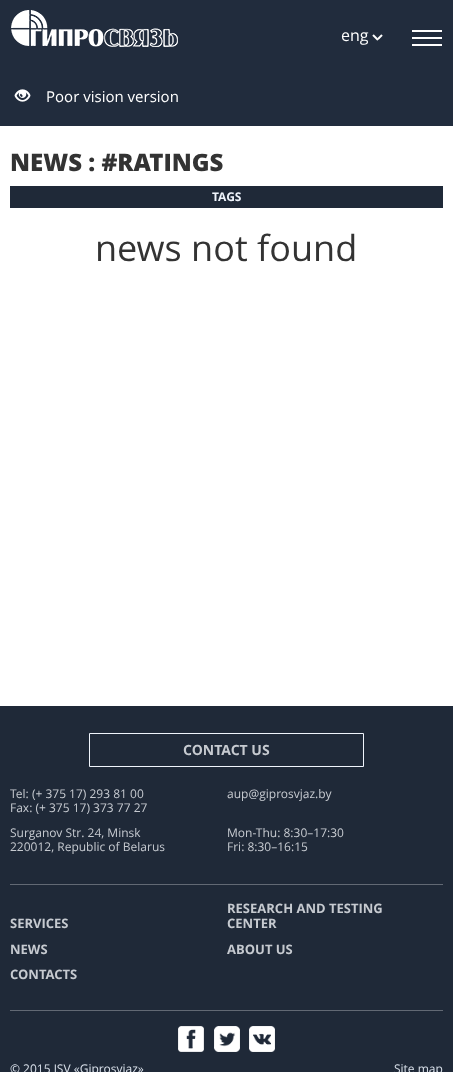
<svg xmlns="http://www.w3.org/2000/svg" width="453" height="1072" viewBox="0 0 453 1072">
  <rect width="100%" height="100%" fill="#fff"/>
  <path d="M0 0h453v126H0z" fill="#212c3d"/>
  <image x="11" y="10" width="167" height="37" href="img/1.png"/>
  <image x="372" y="34" width="11" height="7" href="img/2.png"/>
  <path d="M412 30h30v2H412z" fill="#fff"/>
  <path d="M412 37h30v2H412z" fill="#fff"/>
  <path d="M412 44h30v2H412z" fill="#fff"/>
  <image x="14" y="89" width="17" height="13" href="img/3.png"/>
  <path d="M10 186h433v22H10z" fill="#1f2938"/>
  <path d="M0 706h453v366H0z" fill="#1f2938"/>
  <path d="M10 884h433v1H10z" fill="#626974"/>
  <path d="M89.5 733.5h274v33H89.5z" fill="none" stroke="#eff4fc"/>
  <path d="M10 1010h433v1H10z" fill="#626974"/>
  <image x="178" y="1026" width="26" height="26" href="img/4.png"/>
  <image x="214" y="1026" width="26" height="26" href="img/5.png"/>
  <image x="249" y="1026" width="26" height="26" href="img/6.png"/>
  <text x="341" y="41" font-family="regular" font-size="16" fill="#fff">eng</text>
  <text x="46" y="102" font-family="regular" font-size="15" fill="#fff">Poor vision version</text>
  <text x="10" y="171" font-family="Open Sans" font-size="24" font-weight="800" fill="#333">NEWS : #RATINGS</text>
  <text x="212" y="201" font-family="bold" font-size="12" font-weight="bold" fill="#eff4fc">TAGS</text>
  <text x="95" y="261" font-family="regular" font-size="36" fill="#333">news not found</text>
  <text x="183" y="755" font-family="bold" font-size="14" font-weight="bold" fill="#c6cad0">CONTACT US</text>
  <g font-family="regular" font-size="12" fill="#c6cad0">
    <text x="10" y="798">Tel: (+ 375 17) 293 81 00</text>
    <text x="10" y="812">Fax: (+ 375 17) 373 77 27</text>
    <text x="227" y="798">aup@giprosvjaz.by</text>
    <text x="10" y="837">Surganov Str. 24, Minsk</text>
    <text x="10" y="851">220012, Republic of Belarus</text>
    <text x="227" y="837">Mon-Thu: 8:30–17:30</text>
    <text x="227" y="851">Fri: 8:30–16:15</text>
  </g>
  <g font-family="bold" font-size="13" font-weight="bold" fill="#c6cad0">
    <text x="10" y="928">SERVICES</text>
    <text x="227" y="913">RESEARCH AND TESTING</text>
    <text x="227" y="928">CENTER</text>
    <text x="10" y="954">NEWS</text>
    <text x="227" y="954">ABOUT US</text>
    <text x="10" y="979">CONTACTS</text>
  </g>
  <g font-family="regular" font-size="12" fill="#d9e0ea">
    <text x="10" y="1073">© 2015 JSV «Giprosvjaz»</text>
    <text x="394" y="1073">Site map</text>
  </g>
</svg>
